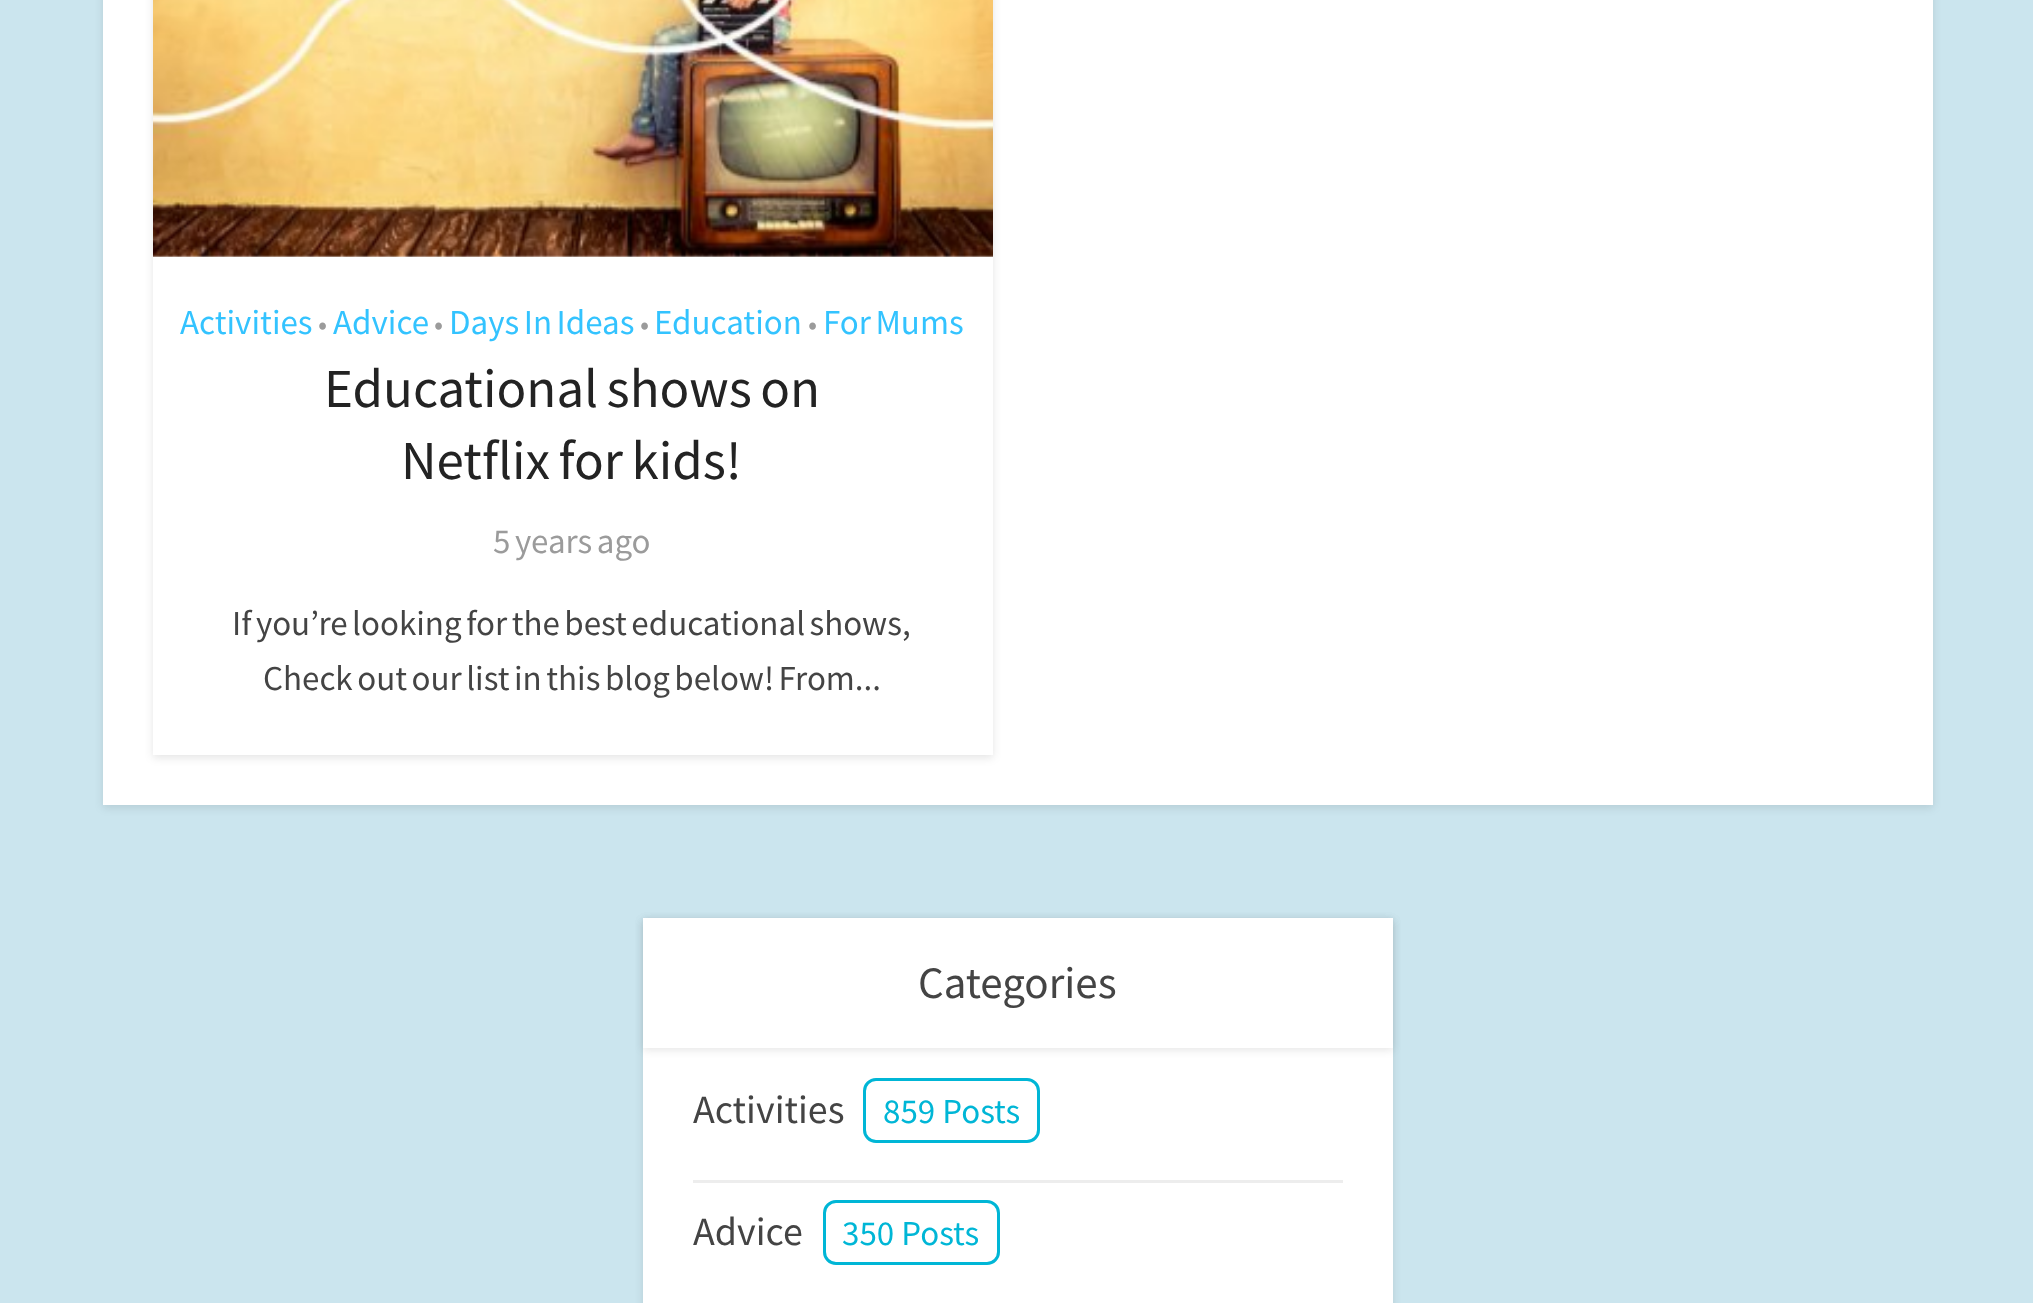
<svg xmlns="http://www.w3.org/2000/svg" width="2033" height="1303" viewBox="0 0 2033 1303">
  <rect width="100%" height="100%" fill="#cbe5ee"/>
  <path d="M103 -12h1830v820H103z" fill="#0000001a" filter="blur(4px)"/>
  <path d="M103 0h1830v805H103z" fill="#fff"/>
  <path d="M153 -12h840v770H153z" fill="#0000001a" filter="blur(4px)"/>
  <path d="M153 255h840v500H153z" fill="#fff"/>
  <image x="153" y="0" width="840" height="257" href="img/1.png"/>
  <path d="M643 920h750v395H643z" fill="#0000001a" filter="blur(4px)"/>
  <path d="M643 1048h750v255H643z" fill="#fff"/>
  <path d="M643 920h750v130H643z" fill="#0000001a" filter="blur(4px)"/>
  <path d="M643 918h750v130H643z" fill="#fff"/>
  <path d="M693 1180h650v3H693z" fill="#ededed"/>
  <rect x="864.5" y="1079.5" width="174" height="62" rx="11.5" fill="none" stroke="#00b6d6" stroke-width="3"/>
  <rect x="824.5" y="1201.5" width="174" height="62" rx="11.5" fill="none" stroke="#00b6d6" stroke-width="3"/>
  <text x="180" y="334" font-family="Source Sans Pro" font-size="35" fill="#33c3ff">Activities</text>
  <text x="318" y="334" font-family="Source Sans Pro" font-size="30" fill="#9b9b9b">•</text>
  <text x="333" y="334" font-family="Source Sans Pro" font-size="35" fill="#33c3ff">Advice</text>
  <text x="434" y="334" font-family="Source Sans Pro" font-size="30" fill="#9b9b9b">•</text>
  <text x="449" y="334" word-spacing="-2.5" font-family="Source Sans Pro" font-size="35" fill="#33c3ff">Days In Ideas</text>
  <text x="640" y="334" font-family="Source Sans Pro" font-size="30" fill="#9b9b9b">•</text>
  <text x="654" y="334" font-family="Source Sans Pro" font-size="35" fill="#33c3ff">Education</text>
  <text x="808" y="334" font-family="Source Sans Pro" font-size="30" fill="#9b9b9b">•</text>
  <text x="823" y="334" word-spacing="-2.5" font-family="Source Sans Pro" font-size="35" fill="#33c3ff">For Mums</text>
  <g font-family="Source Sans Pro" font-size="55" fill="#232323">
    <text x="324" y="407" word-spacing="-2.5">Educational shows on</text>
    <text x="401" y="479" word-spacing="-2.5">Netflix for kids!</text>
  </g>
  <text x="493" y="553" word-spacing="-2.5" font-family="Source Sans Pro" font-size="35" fill="#9b9b9b">5 years ago</text>
  <g font-family="Source Sans Pro" font-size="35" fill="#444">
    <text x="232" y="635" word-spacing="-2.5">If you’re looking for the best educational shows,</text>
    <text x="263" y="690" word-spacing="-2.5">Check out our list in this blog below! From...</text>
  </g>
  <text x="918" y="998" font-family="Source Sans Pro" font-size="45" fill="#444">Categories</text>
  <text x="693" y="1123" font-family="Source Sans Pro" font-size="40" fill="#444">Activities</text>
  <text x="883" y="1123" font-family="Source Sans Pro" font-size="35" fill="#00b6d6">859 Posts</text>
  <text x="693" y="1245" font-family="Source Sans Pro" font-size="40" fill="#444">Advice</text>
  <text x="842" y="1245" font-family="Source Sans Pro" font-size="35" fill="#00b6d6">350 Posts</text>
</svg>
